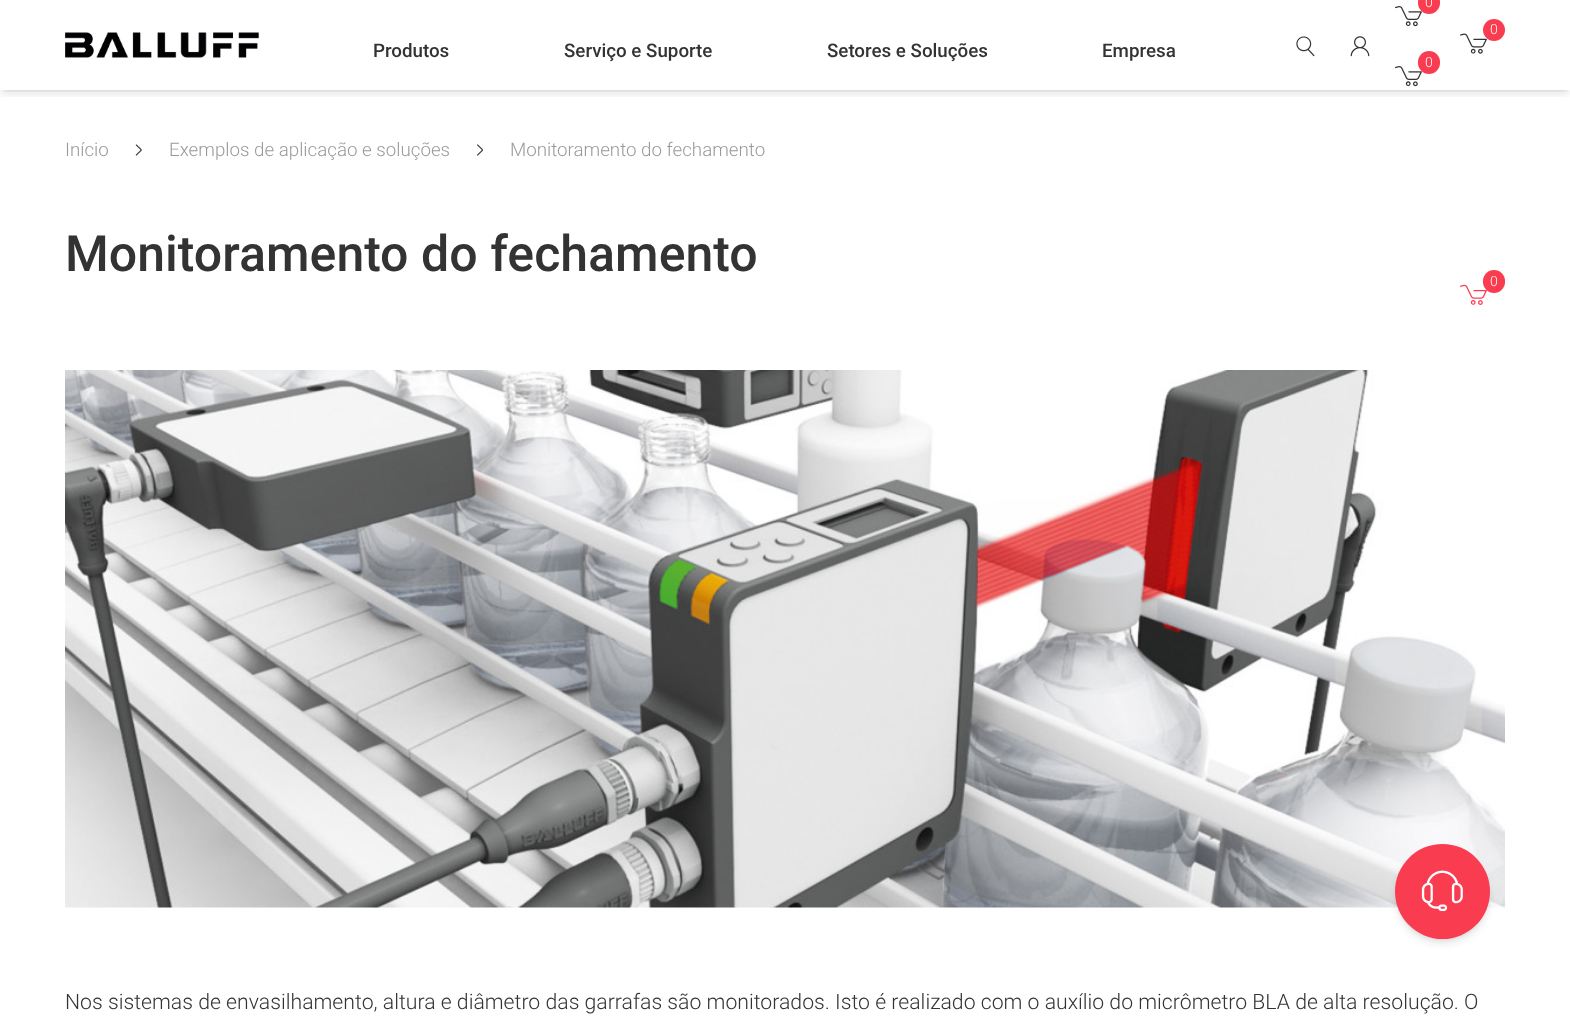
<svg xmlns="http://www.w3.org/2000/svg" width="1570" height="1018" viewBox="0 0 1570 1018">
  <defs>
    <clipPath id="clip1"><path d="M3 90h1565v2H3z"/></clipPath>
    <clipPath id="clip2"><path d="M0 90h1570v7H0z"/></clipPath>
  </defs>
  <rect width="100%" height="100%" fill="#fff"/>
  <g clip-path="url(#clip1)">
    <path d="M3 5h1565v85H3z" fill="#0000001a" filter="blur(2.5px)"/>
  </g>
  <g clip-path="url(#clip2)">
    <path d="M1 6h1568v88H1z" fill="#0000001a" filter="blur(4px)"/>
  </g>
  <image x="65" y="32" width="194" height="26" href="img/1.png"/>
  <image x="1395" y="6" width="27" height="21" href="img/2.png"/>
  <rect x="1418" y="-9" width="22" height="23" rx="11" fill="#f93c4f"/>
  <image x="1395" y="66" width="27" height="21" href="img/2.png"/>
  <rect x="1418" y="51" width="22" height="23" rx="11" fill="#f93c4f"/>
  <image x="1460" y="33" width="27" height="21" href="img/3.png"/>
  <circle cx="1494" cy="30" r="11" fill="#f93c4f"/>
  <image x="1296" y="36" width="19" height="21" href="img/4.png"/>
  <image x="1350" y="36" width="20" height="21" href="img/5.png"/>
  <image x="135" y="144" width="7" height="12" href="img/6.png"/>
  <image x="477" y="144" width="6" height="12" href="img/7.png"/>
  <image x="1460" y="284" width="27" height="21" href="img/8.png"/>
  <rect x="1483" y="270" width="22" height="23" rx="11" fill="#f93c4f"/>
  <image x="65" y="370" width="1440" height="538" href="img/9.png"/>
  <rect x="1398" y="849" width="90" height="90" rx="45" fill="#0000001a" filter="blur(2.5px)"/>
  <rect x="1396" y="850" width="93" height="93" rx="46.5" fill="#0000001a" filter="blur(4px)"/>
  <circle cx="1442.5" cy="891.5" r="47.5" fill="#f93c4f"/>
  <image x="1421" y="870" width="42" height="42" href="img/10.png"/>
  <g font-family="Roboto" font-size="18.75" font-weight="500" fill="#333">
    <text x="373" y="57">Produtos</text>
    <text x="564" y="57">Serviço e Suporte</text>
    <text x="827" y="57">Setores e Soluções</text>
    <text x="1102" y="57">Empresa</text>
  </g>
  <g font-family="Roboto" font-size="14" font-weight="300" fill="#fff">
    <text x="1425" y="7">0</text>
    <text x="1425" y="67">0</text>
    <text x="1490" y="34">0</text>
  </g>
  <g font-family="Roboto" font-size="18.75" font-weight="300" fill="#999">
    <text x="65" y="156">Início</text>
    <text x="169" y="156">Exemplos de aplicação e soluções</text>
    <text x="510" y="156">Monitoramento do fechamento</text>
  </g>
  <text x="65" y="271" font-family="Roboto" font-size="50" font-weight="500" fill="#333">Monitoramento do fechamento</text>
  <text x="1490" y="286" font-family="Roboto" font-size="14" font-weight="300" fill="#fff">0</text>
  <text x="65" y="1009" font-family="Roboto" font-size="21.25" font-weight="300" fill="#333">Nos sistemas de envasilhamento, altura e diâmetro das garrafas são monitorados. Isto é realizado com o auxílio do micrômetro BLA de alta resolução. O</text>
</svg>
